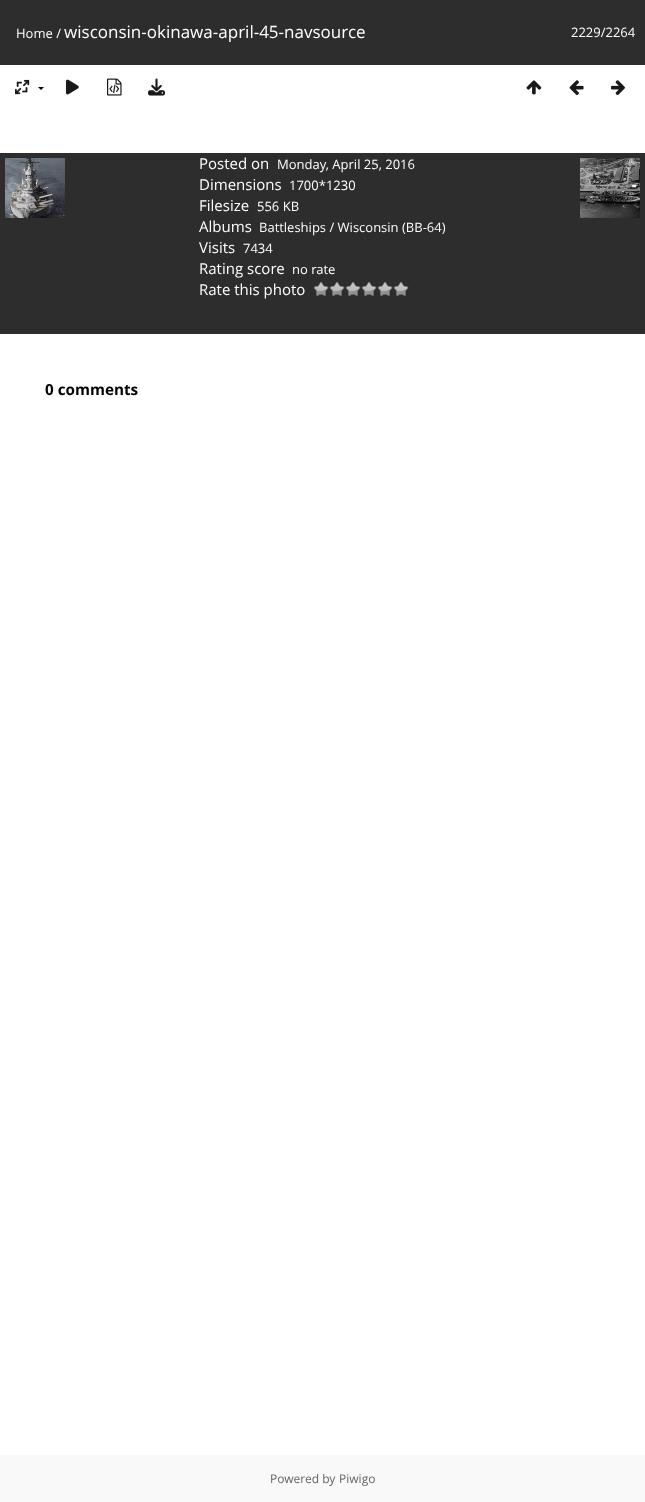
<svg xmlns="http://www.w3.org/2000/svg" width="645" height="1502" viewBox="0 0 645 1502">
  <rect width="100%" height="100%" fill="#fff"/>
  <path d="M0 0h645v65H0z" fill="#2d2d2d"/>
  <image x="15" y="79" width="15" height="16" href="img/1.png"/>
  <path d="M38 87H44L41 90Z" fill="#000"/>
  <image x="66" y="79" width="13" height="16" href="img/2.png"/>
  <image x="107" y="78" width="15" height="18" href="img/3.png"/>
  <image x="148" y="78" width="17" height="18" href="img/4.png"/>
  <image x="526" y="80" width="16" height="15" href="img/5.png"/>
  <image x="569" y="80" width="15" height="15" href="img/6.png"/>
  <image x="611" y="80" width="14" height="15" href="img/7.png"/>
  <path d="M0 153h645v181H0z" fill="#2d2d2d"/>
  <image x="313" y="282" width="16" height="14" href="img/8.png"/>
  <image x="329" y="282" width="16" height="14" href="img/8.png"/>
  <image x="345" y="282" width="16" height="14" href="img/8.png"/>
  <image x="361" y="282" width="16" height="14" href="img/8.png"/>
  <image x="377" y="282" width="16" height="14" href="img/8.png"/>
  <image x="393" y="282" width="16" height="14" href="img/8.png"/>
  <image x="5" y="158" width="60" height="60" href="img/9.png"/>
  <image x="580" y="158" width="60" height="60" href="img/10.png"/>
  <path d="M0 1455h645v47H0z" fill="#f9f9f9"/>
  <text x="16" y="38" font-family="Open Sans" font-size="13" fill="#fff">Home /</text>
  <text x="64" y="38" font-family="Open Sans" font-size="17" fill="#fff">wisconsin-okinawa-april-45-navsource</text>
  <text x="571" y="37" font-family="Open Sans" font-size="13" fill="#fff">2229/2264</text>
  <text x="199" y="169" font-family="Open Sans" font-size="15" fill="#fff">Posted on</text>
  <text x="277" y="169" font-family="Open Sans" font-size="13" fill="#fff">Monday, April 25, 2016</text>
  <text x="199" y="190" font-family="Open Sans" font-size="15" fill="#fff">Dimensions</text>
  <text x="289" y="190" font-family="Open Sans" font-size="13" fill="#fff">1700*1230</text>
  <text x="199" y="211" font-family="Open Sans" font-size="15" fill="#fff">Filesize</text>
  <text x="257" y="211" font-family="Open Sans" font-size="13" fill="#fff">556 KB</text>
  <text x="199" y="232" font-family="Open Sans" font-size="15" fill="#fff">Albums</text>
  <text x="259" y="232" font-family="Open Sans" font-size="13" fill="#fff">Battleships / Wisconsin (BB-64)</text>
  <text x="199" y="253" font-family="Open Sans" font-size="15" fill="#fff">Visits</text>
  <text x="243" y="253" font-family="Open Sans" font-size="13" fill="#fff">7434</text>
  <text x="199" y="274" font-family="Open Sans" font-size="15" fill="#fff">Rating score</text>
  <text x="292" y="274" font-family="Open Sans" font-size="13" fill="#fff">no rate</text>
  <text x="199" y="295" font-family="Open Sans" font-size="15" fill="#fff">Rate this photo</text>
  <text x="45" y="395" font-family="Open Sans" font-size="15.25" font-weight="bold" fill="#000">0 comments</text>
  <g font-family="Open Sans" font-size="12" fill="#666">
    <text x="270" y="1483">Powered by</text>
    <text x="339" y="1483">Piwigo</text>
  </g>
</svg>
